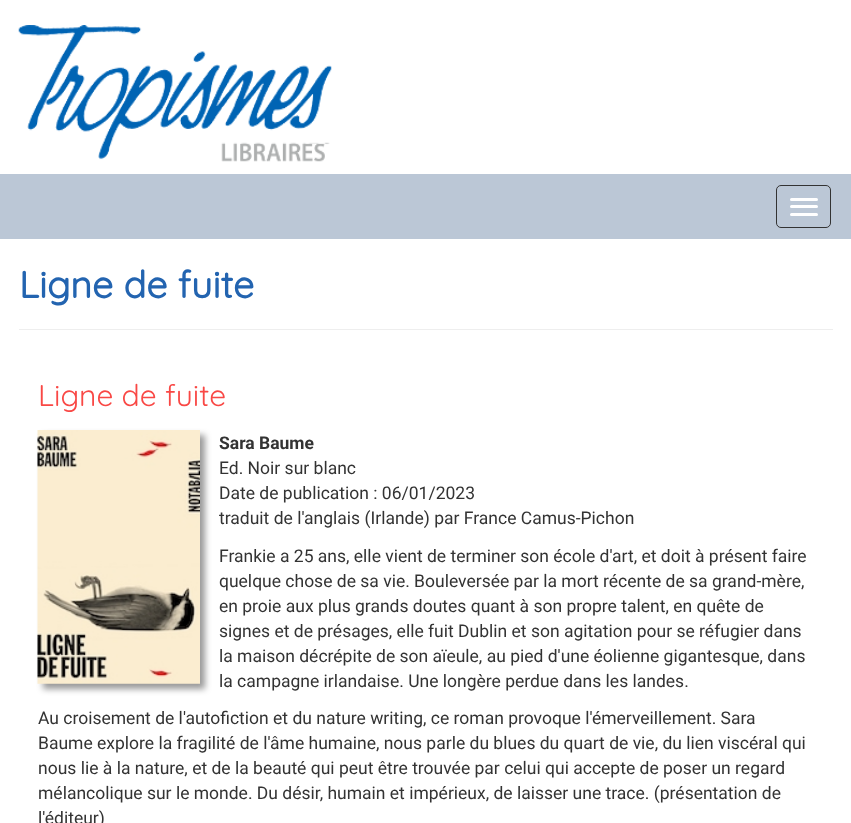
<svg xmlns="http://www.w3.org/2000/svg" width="851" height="823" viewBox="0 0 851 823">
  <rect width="100%" height="100%" fill="#fff"/>
  <image x="18" y="25" width="314" height="137" href="img/1.png"/>
  <path d="M0 174h851v65H0z" fill="#bbc7d6"/>
  <rect x="776.5" y="185.5" width="54" height="42" rx="4.5" fill="none" stroke="#333"/>
  <rect x="790" y="198" width="28" height="3" rx="1.5" fill="#fff"/>
  <rect x="790" y="205" width="28" height="3" rx="1.5" fill="#fff"/>
  <rect x="790" y="213" width="28" height="3" rx="1.5" fill="#fff"/>
  <path d="M19 329h814v1H19z" fill="#eee"/>
  <path d="M43 435h162v254H43z" fill="#00000066" filter="blur(3px)"/>
  <image x="37" y="430" width="163" height="254" href="img/2.png"/>
  <text x="19" y="298" font-family="Quicksand" font-size="37.5" font-weight="bold" fill="#2364b0">Ligne de fuite</text>
  <text x="38" y="406" font-family="Quicksand" font-size="30" font-weight="300" fill="#f94845">Ligne de fuite</text>
  <text x="219" y="449" font-family="Roboto" font-size="17.5" font-weight="bold" fill="#333">Sara Baume</text>
  <g font-family="Roboto" font-size="17.5" fill="#333">
    <text x="219" y="474">Ed. Noir sur blanc</text>
    <text x="219" y="499">Date de publication : 06/01/2023</text>
    <text x="219" y="524">traduit de l'anglais (Irlande) par France Camus-Pichon</text>
    <text x="219" y="562">Frankie a 25 ans, elle vient de terminer son école d'art, et doit à présent faire</text>
    <text x="219" y="587">quelque chose de sa vie. Bouleversée par la mort récente de sa grand-mère,</text>
    <text x="219" y="612">en proie aux plus grands doutes quant à son propre talent, en quête de</text>
    <text x="219" y="637">signes et de présages, elle fuit Dublin et son agitation pour se réfugier dans</text>
    <text x="219" y="662">la maison décrépite de son aïeule, au pied d'une éolienne gigantesque, dans</text>
    <text x="219" y="687">la campagne irlandaise. Une longère perdue dans les landes.</text>
    <text x="38" y="724">Au croisement de l'autofiction et du nature writing, ce roman provoque l'émerveillement. Sara</text>
    <text x="38" y="749">Baume explore la fragilité de l'âme humaine, nous parle du blues du quart de vie, du lien viscéral qui</text>
    <text x="38" y="774">nous lie à la nature, et de la beauté qui peut être trouvée par celui qui accepte de poser un regard</text>
    <text x="38" y="799">mélancolique sur le monde. Du désir, humain et impérieux, de laisser une trace. (présentation de</text>
    <text x="38" y="824">l'éditeur)</text>
  </g>
</svg>
